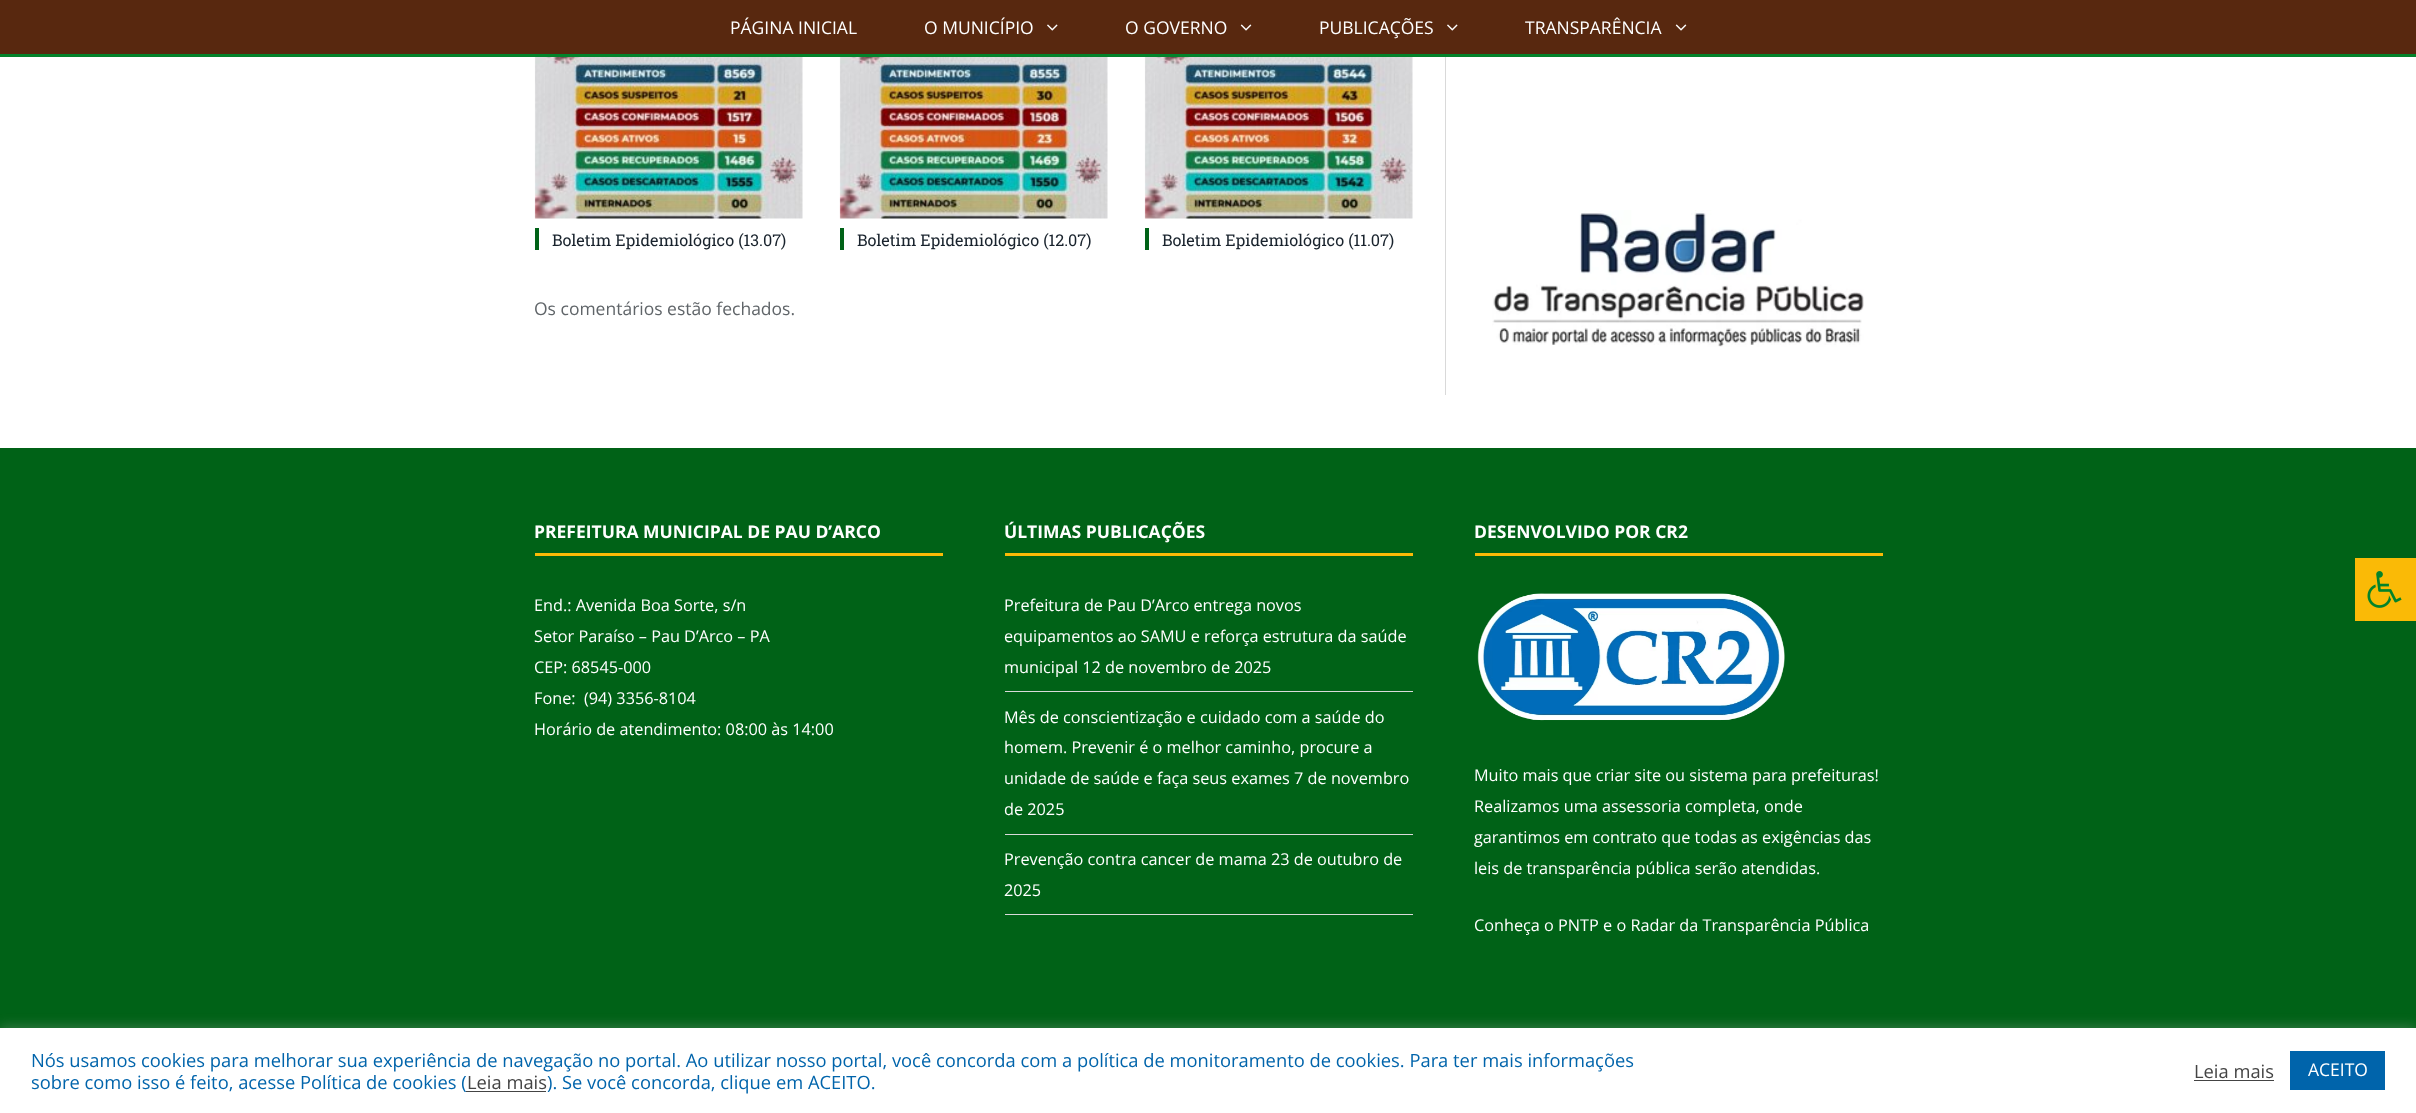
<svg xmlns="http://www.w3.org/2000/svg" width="2416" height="1113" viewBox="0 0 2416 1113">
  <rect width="100%" height="100%" fill="#fff"/>
  <path d="M0 0h2416v54H0z" fill="#58280f"/>
  <path d="M0 54h2416v3H0z" fill="#03832b"/>
  <image x="1047" y="24" width="11" height="7" href="img/1.png"/>
  <image x="1240" y="24" width="12" height="7" href="img/2.png"/>
  <image x="1447" y="24" width="11" height="7" href="img/1.png"/>
  <image x="1675" y="24" width="12" height="7" href="img/2.png"/>
  <image x="534" y="57" width="269" height="162" href="img/3.png"/>
  <path d="M535 228h4v22H535z" fill="#006217"/>
  <image x="839" y="57" width="269" height="162" href="img/4.png"/>
  <path d="M840 228h4v22H840z" fill="#006217"/>
  <image x="1144" y="57" width="269" height="162" href="img/5.png"/>
  <path d="M1145 228h4v22H1145z" fill="#006217"/>
  <path d="M1445 57h1v338H1445z" fill="#d9d9d9"/>
  <image x="1492" y="210" width="372" height="137" href="img/6.png"/>
  <path d="M0 448h2416v580H0z" fill="#006217"/>
  <path d="M535 553h408v3H535z" fill="#faba06"/>
  <path d="M1005 553h408v3H1005z" fill="#faba06"/>
  <path d="M1005 691h408v1H1005z" fill="#d9d9d9"/>
  <path d="M1005 834h408v1H1005z" fill="#d9d9d9"/>
  <path d="M1005 914h408v1H1005z" fill="#d9d9d9"/>
  <path d="M1475 553h408v3H1475z" fill="#faba06"/>
  <image x="1477" y="593" width="308" height="128" href="img/7.png"/>
  <path d="M2355 558h61v63H2355z" fill="#faba06"/>
  <image x="2367" y="571" width="35" height="37" href="img/8.png"/>
  <path d="M0 1026h2416v87H0z" fill="#acabab4d" filter="blur(6px)"/>
  <path d="M0 1028h2416v85H0z" fill="#fff"/>
  <path d="M2194 1080h80v1H2194z" fill="#444"/>
  <path d="M2290 1051h95v39H2290z" fill="#0064ab"/>
  <g font-family="Open Sans" font-size="17.5" fill="#fff">
    <text x="730" y="34">PÁGINA INICIAL</text>
    <text x="924" y="34">O MUNICÍPIO</text>
    <text x="1125" y="34">O GOVERNO</text>
    <text x="1319" y="34">PUBLICAÇÕES</text>
    <text x="1525" y="34">TRANSPARÊNCIA</text>
  </g>
  <g font-family="Roboto Slab" font-size="16.25" fill="#19232d">
    <text x="552" y="246">Boletim Epidemiológico (13.07)</text>
    <text x="857" y="246">Boletim Epidemiológico (12.07)</text>
    <text x="1162" y="246">Boletim Epidemiológico (11.07)</text>
  </g>
  <text x="534" y="315" font-family="Open Sans" font-size="17.5" fill="#606569">Os comentários estão fechados.</text>
  <text x="534" y="538" font-family="Open Sans" font-size="17.5" font-weight="bold" fill="#fff">PREFEITURA MUNICIPAL DE PAU D’ARCO</text>
  <g font-family="Open Sans" font-size="16.25" fill="#fff">
    <text x="534" y="611">End.: Avenida Boa Sorte, s/n</text>
    <text x="534" y="642">Setor Paraíso – Pau D’Arco – PA</text>
    <text x="534" y="673">CEP: 68545-000</text>
    <text x="534" y="704" xml:space="preserve">Fone:  (94) 3356-8104</text>
    <text x="534" y="735">Horário de atendimento: 08:00 às 14:00</text>
  </g>
  <text x="1004" y="538" font-family="Open Sans" font-size="17.5" font-weight="bold" fill="#fff">ÚLTIMAS PUBLICAÇÕES</text>
  <g font-family="Open Sans" font-size="16.25" fill="#fff">
    <text x="1004" y="611">Prefeitura de Pau D’Arco entrega novos</text>
    <text x="1004" y="642">equipamentos ao SAMU e reforça estrutura da saúde</text>
    <text x="1004" y="673">municipal 12 de novembro de 2025</text>
    <text x="1004" y="723">Mês de conscientização e cuidado com a saúde do</text>
    <text x="1004" y="753">homem. Prevenir é o melhor caminho, procure a</text>
    <text x="1004" y="784">unidade de saúde e faça seus exames 7 de novembro</text>
    <text x="1004" y="815">de 2025</text>
    <text x="1004" y="865">Prevenção contra cancer de mama 23 de outubro de</text>
    <text x="1004" y="896">2025</text>
  </g>
  <text x="1474" y="538" font-family="Open Sans" font-size="17.5" font-weight="bold" fill="#fff">DESENVOLVIDO POR CR2</text>
  <g font-family="Open Sans" font-size="16.25" fill="#fff">
    <text x="1474" y="781">Muito mais que criar site ou sistema para prefeituras!</text>
    <text x="1474" y="812">Realizamos uma assessoria completa, onde</text>
    <text x="1474" y="843">garantimos em contrato que todas as exigências das</text>
    <text x="1474" y="874">leis de transparência pública serão atendidas.</text>
    <text x="1474" y="931">Conheça o PNTP e o Radar da Transparência Pública</text>
  </g>
  <g font-family="Open Sans" font-size="18.33" fill="#0064ab">
    <text x="31" y="1067">Nós usamos cookies para melhorar sua experiência de navegação no portal. Ao utilizar nosso portal, você concorda com a política de monitoramento de cookies. Para ter mais informações</text>
    <text x="31" y="1089">sobre como isso é feito, acesse Política de cookies (</text>
  </g>
  <text x="467" y="1089" font-family="Open Sans" font-size="18.33" fill="#444">Leia mais</text>
  <path d="M466 1091h80v1H466z" fill="#444"/>
  <text x="547" y="1089" font-family="Open Sans" font-size="18.33" fill="#0064ab">). Se você concorda, clique em ACEITO.</text>
  <text x="2194" y="1078" font-family="Open Sans" font-size="18.33" fill="#444">Leia mais</text>
  <text x="2308" y="1076" font-family="Open Sans" font-size="17.5" fill="#fff">ACEITO</text>
</svg>
